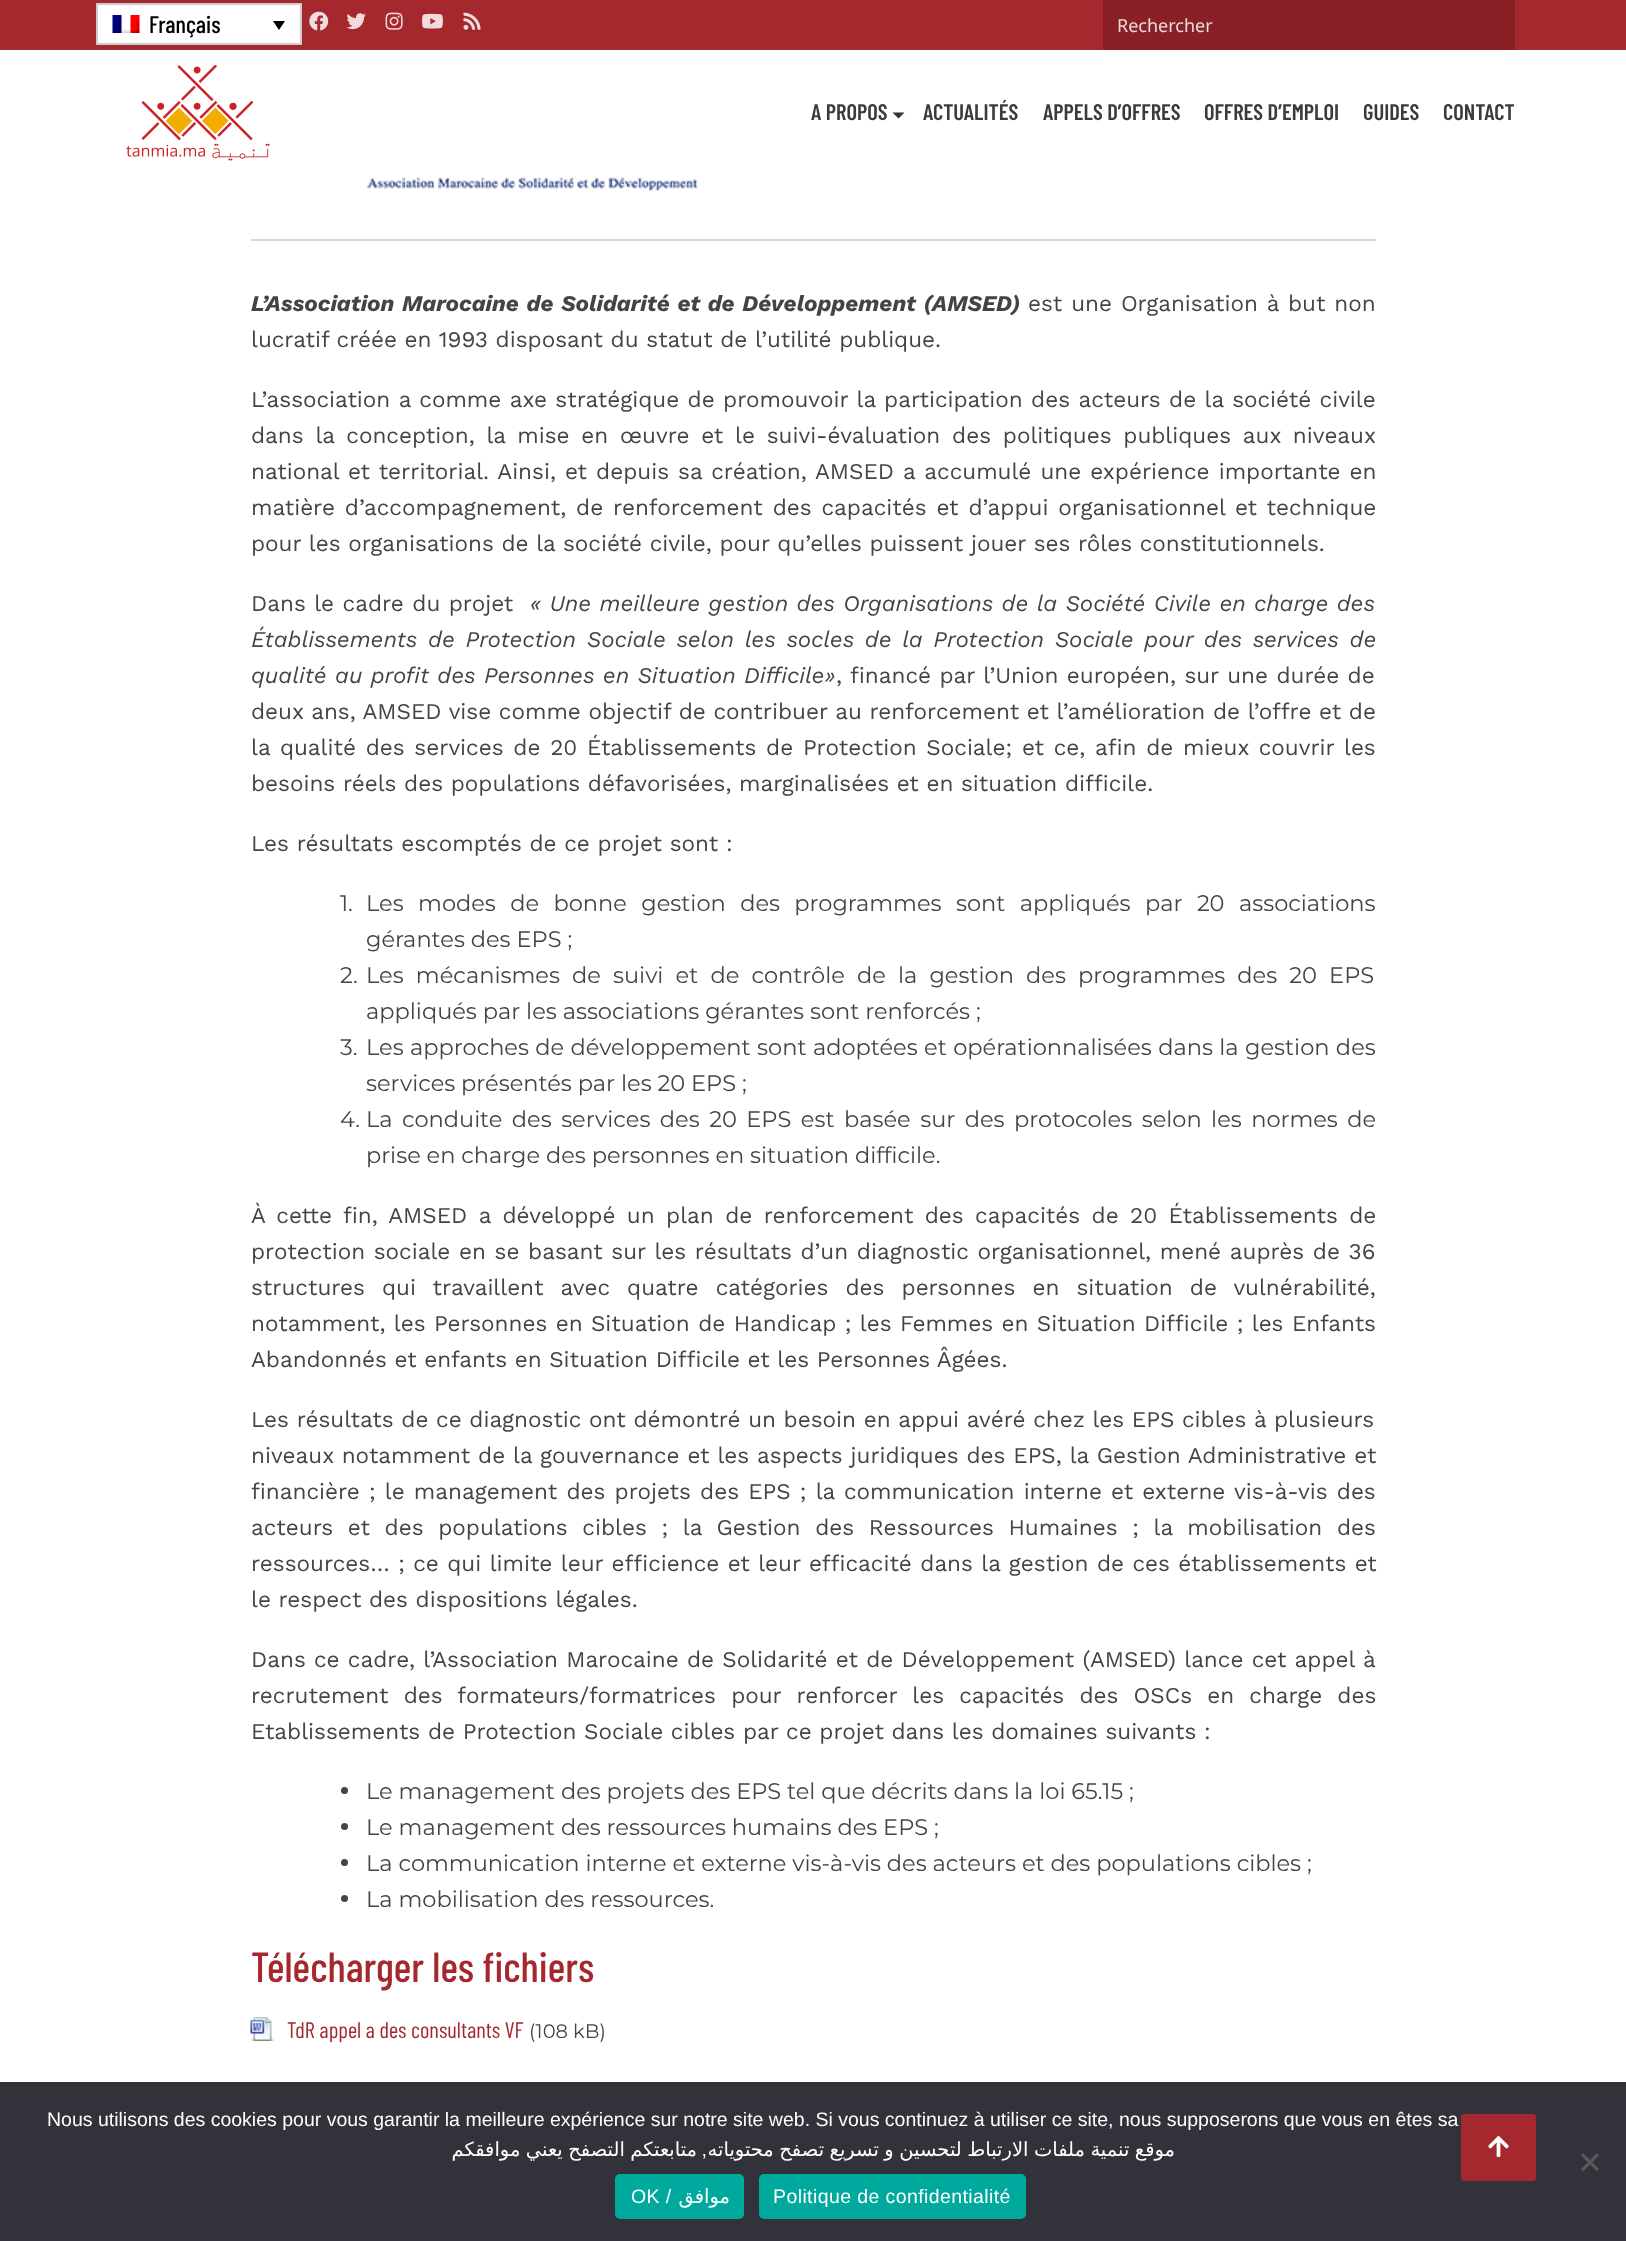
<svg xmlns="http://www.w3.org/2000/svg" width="1626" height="2241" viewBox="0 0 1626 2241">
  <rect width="100%" height="100%" fill="#fff"/>
  <path d="M0 0h1626v50H0z" fill="#a5282f"/>
  <path d="M97 4h204v40H97z" fill="#fff" stroke="#cdcdcd" stroke-width="2"/>
  <image x="112" y="15" width="28" height="18" href="img/1.png"/>
  <path d="M273 21H285L279 30Z" fill="#000"/>
  <image x="309" y="11" width="20" height="20" href="img/2.png"/>
  <image x="346" y="13" width="20" height="17" href="img/3.png"/>
  <image x="385" y="12" width="18" height="18" href="img/4.png"/>
  <image x="422" y="13" width="21" height="16" href="img/5.png"/>
  <image x="463" y="12" width="18" height="18" href="img/6.png"/>
  <path d="M1103 0h412v50H1103z" fill="#882026"/>
  <image x="126" y="65" width="144" height="96" href="img/7.png"/>
  <path d="M892.5 112.5H904.5L898.5 118.5Z" fill="#333"/>
  <image x="367" y="177" width="331" height="14" href="img/8.png"/>
  <path d="M251 239h1125v2H251z" fill="#d9d9d9"/>
  <circle cx="344.5" cy="1790.5" r="3.5" fill="#444"/>
  <circle cx="344.5" cy="1826.5" r="3.5" fill="#444"/>
  <circle cx="344.5" cy="1862.5" r="3.5" fill="#444"/>
  <circle cx="344.5" cy="1898.5" r="3.5" fill="#444"/>
  <image x="250" y="2017" width="25" height="24" href="img/9.png"/>
  <path d="M0 2082h1626v159H0z" fill="#32323a"/>
  <path d="M1597 2153L1599 2155.5L1583 2171.5L1581 2169Z" fill="#59595d"/>
  <path d="M1581 2155.5L1583 2153L1599 2169L1597 2171.5Z" fill="#59595d"/>
  <rect x="615" y="2174" width="129" height="45" rx="5" fill="#00a99d"/>
  <rect x="759" y="2174" width="267" height="45" rx="5" fill="#00a99d"/>
  <rect x="1461" y="2114" width="75" height="67" rx="3" fill="#a5282f"/>
  <image x="1488" y="2136" width="21" height="21" href="img/10.png"/>
  <text x="149" y="33" font-family="Barlow Condensed" font-size="24" font-weight="500" fill="#000">Français</text>
  <text x="1117" y="32" font-family="Noto Sans" font-size="18" fill="#ecdbdc">Rechercher</text>
  <g font-family="Barlow Condensed" font-size="22.5" font-weight="600" fill="#3b3b3b">
    <text x="811" y="120">A PROPOS</text>
    <text x="923" y="120">ACTUALITÉS</text>
    <text x="1043" y="120">APPELS D’OFFRES</text>
    <text x="1204" y="120">OFFRES D’EMPLOI</text>
    <text x="1363" y="120">GUIDES</text>
    <text x="1443" y="120">CONTACT</text>
  </g>
  <text x="251" y="311" word-spacing="1.25" font-family="Work Sans" font-size="22.5" font-weight="bold" font-style="italic" fill="#444">L’Association Marocaine de Solidarité et de Développement (AMSED)</text>
  <g font-family="Work Sans" font-size="22.5" fill="#444">
    <text x="1028" y="311" word-spacing="1.25">est une Organisation à but non</text>
    <text x="251" y="347">lucratif créée en 1993 disposant du statut de l’utilité publique.</text>
    <text x="251" y="407" word-spacing="0.75">L’association a comme axe stratégique de promouvoir la participation des acteurs de la société civile</text>
    <text x="251" y="443" word-spacing="4.1">dans la conception, la mise en œuvre et le suivi-évaluation des politiques publiques aux niveaux</text>
    <text x="251" y="479" word-spacing="1.4">national et territorial. Ainsi, et depuis sa création, AMSED a accumulé une expérience importante en</text>
    <text x="251" y="515" word-spacing="2.25">matière d’accompagnement, de renforcement des capacités et d’appui organisationnel et technique</text>
    <text x="251" y="551">pour les organisations de la société civile, pour qu’elles puissent jouer ses rôles constitutionnels.</text>
    <text x="251" y="611" word-spacing="0.8">Dans le cadre du projet</text>
  </g>
  <g font-family="Work Sans" font-size="22.5" font-style="italic" fill="#444">
    <text x="530" y="611" word-spacing="0.8">« Une meilleure gestion des Organisations de la Société Civile en charge des</text>
    <text x="251" y="647" word-spacing="3.1">Établissements de Protection Sociale selon les socles de la Protection Sociale pour des services de</text>
    <text x="251" y="683" word-spacing="0.75">qualité au profit des Personnes en Situation Difficile»</text>
  </g>
  <g font-family="Work Sans" font-size="22.5" fill="#444">
    <text x="836" y="683" word-spacing="0.75">, financé par l’Union européen, sur une durée de</text>
    <text x="251" y="719">deux ans, AMSED vise comme objectif de contribuer au renforcement et l’amélioration de l’offre et de</text>
    <text x="251" y="755" word-spacing="2.1">la qualité des services de 20 Établissements de Protection Sociale; et ce, afin de mieux couvrir les</text>
    <text x="251" y="791">besoins réels des populations défavorisées, marginalisées et en situation difficile.</text>
    <text x="251" y="851">Les résultats escomptés de ce projet sont :</text>
  </g>
  <g font-family="Montserrat" font-size="22.5" fill="#444">
    <text x="340" y="911">1.</text>
    <text x="366" y="911" word-spacing="8.5">Les modes de bonne gestion des programmes sont appliqués par 20 associations</text>
    <text x="366" y="947">gérantes des EPS ;</text>
    <text x="340" y="983">2.</text>
    <text x="366" y="983" word-spacing="6.25">Les mécanismes de suivi et de contrôle de la gestion des programmes des 20 EPS</text>
    <text x="366" y="1019">appliqués par les associations gérantes sont renforcés ;</text>
    <text x="340" y="1055">3.</text>
    <text x="366" y="1055" word-spacing="0.5">Les approches de développement sont adoptées et opérationnalisées dans la gestion des</text>
    <text x="366" y="1091">services présentés par les 20 EPS ;</text>
    <text x="340" y="1127">4.</text>
    <text x="366" y="1127" word-spacing="3.6">La conduite des services des 20 EPS est basée sur des protocoles selon les normes de</text>
    <text x="366" y="1163">prise en charge des personnes en situation difficile.</text>
  </g>
  <g font-family="Work Sans" font-size="22.5" fill="#444">
    <text x="251" y="1223" word-spacing="3.75">À cette fin, AMSED a développé un plan de renforcement des capacités de 20 Établissements de</text>
    <text x="251" y="1259" word-spacing="1">protection sociale en se basant sur les résultats d’un diagnostic organisationnel, mené auprès de 36</text>
    <text x="251" y="1295" word-spacing="9.4">structures qui travaillent avec quatre catégories des personnes en situation de vulnérabilité,</text>
    <text x="251" y="1331" word-spacing="0.75">notamment, les Personnes en Situation de Handicap ; les Femmes en Situation Difficile ; les Enfants</text>
    <text x="251" y="1367">Abandonnés et enfants en Situation Difficile et les Personnes Âgées.</text>
    <text x="251" y="1427">Les résultats de ce diagnostic ont démontré un besoin en appui avéré chez les EPS cibles à plusieurs</text>
    <text x="251" y="1463" word-spacing="0.25">niveaux notamment de la gouvernance et les aspects juridiques des EPS, la Gestion Administrative et</text>
    <text x="251" y="1499" word-spacing="1.5">financière ; le management des projets des EPS ; la communication interne et externe vis-à-vis des</text>
    <text x="251" y="1535" word-spacing="7">acteurs et des populations cibles ; la Gestion des Ressources Humaines ; la mobilisation des</text>
    <text x="251" y="1571" word-spacing="0.75">ressources… ; ce qui limite leur efficience et leur efficacité dans la gestion de ces établissements et</text>
    <text x="251" y="1607">le respect des dispositions légales.</text>
    <text x="251" y="1667" word-spacing="0.6">Dans ce cadre, l’Association Marocaine de Solidarité et de Développement (AMSED) lance cet appel à</text>
    <text x="251" y="1703" word-spacing="7.5">recrutement des formateurs/formatrices pour renforcer les capacités des OSCs en charge des</text>
    <text x="251" y="1739">Etablissements de Protection Sociale cibles par ce projet dans les domaines suivants :</text>
  </g>
  <g font-family="Montserrat" font-size="22.5" fill="#444">
    <text x="366" y="1799">Le management des projets des EPS tel que décrits dans la loi 65.15 ;</text>
    <text x="366" y="1835">Le management des ressources humains des EPS ;</text>
    <text x="366" y="1871">La communication interne et externe vis-à-vis des acteurs et des populations cibles ;</text>
    <text x="366" y="1907">La mobilisation des ressources.</text>
  </g>
  <text x="251" y="1982" font-family="Barlow Condensed" font-size="42" font-weight="500" fill="#a5282f">Télécharger les fichiers</text>
  <text x="287" y="2038" font-family="Barlow Condensed" font-size="22.5" fill="#a5282f">TdR appel a des consultants VF</text>
  <text x="529" y="2038" font-family="Montserrat" font-size="19.5" fill="#444">(108 kB)</text>
  <text x="47" y="2126" font-family="Liberation Sans" font-size="19.5" fill="#fff">Nous utilisons des cookies pour vous garantir la meilleure expérience sur notre site web. Si vous continuez à utiliser ce site, nous supposerons que vous en êtes sa</text>
  <text x="697" y="2156" word-spacing="-0.75" font-family="DejaVu Sans" font-size="19.5" direction="rtl" fill="#fff">متابعتكم التصفح يعني موافقكم</text>
  <text x="707" y="2156" font-family="Liberation Sans" font-size="19.5" direction="rtl" fill="#fff">,</text>
  <text x="1175" y="2156" word-spacing="-0.75" font-family="DejaVu Sans" font-size="19.5" direction="rtl" fill="#fff">موقع تنمية ملفات الارتباط لتحسين و تسريع تصفح محتوياته</text>
  <text x="631" y="2203" font-family="Liberation Sans" font-size="19.5" letter-spacing="0.4" fill="#fff">OK /</text>
  <text x="730" y="2203" font-family="DejaVu Sans" font-size="19.5" letter-spacing="0.4" direction="rtl" fill="#fff">موافق</text>
  <text x="773" y="2203" font-family="Liberation Sans" font-size="19.5" letter-spacing="0.4" fill="#fff">Politique de confidentialité</text>
</svg>
